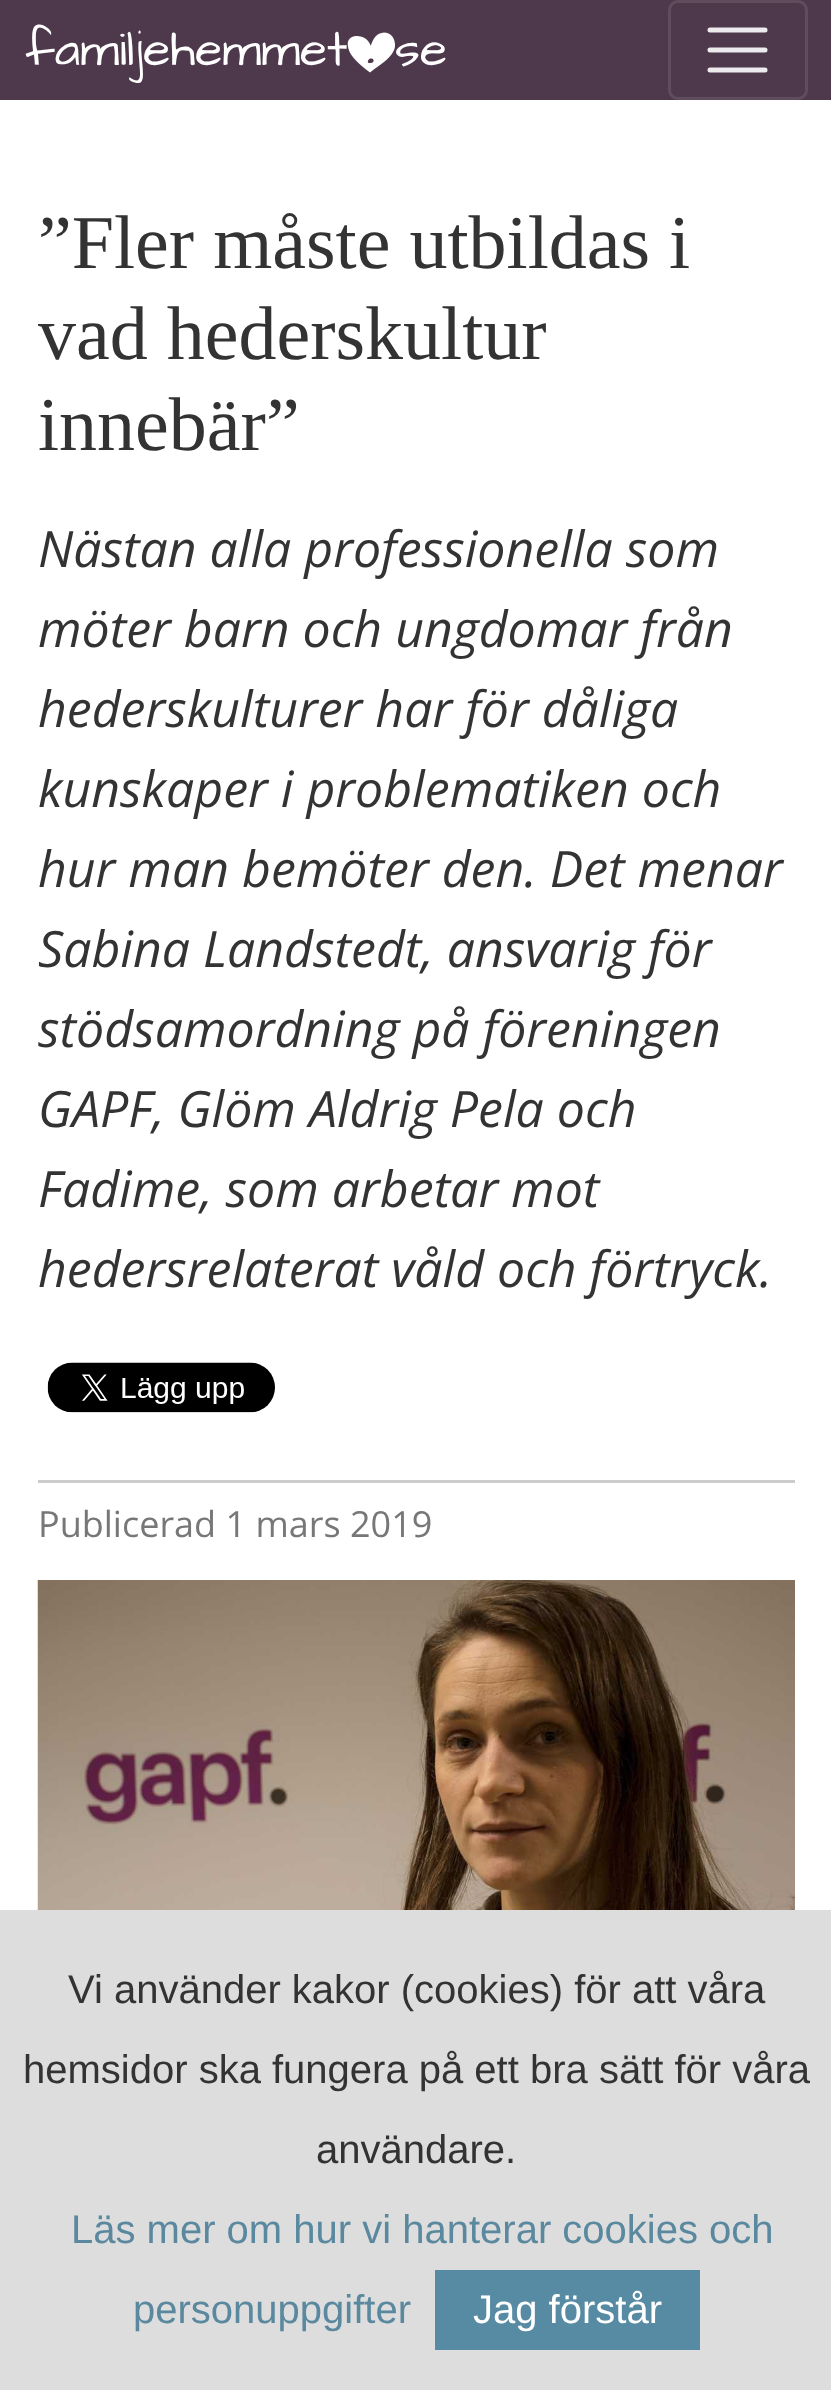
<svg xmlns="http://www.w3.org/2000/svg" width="831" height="2390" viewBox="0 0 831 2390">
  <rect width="100%" height="100%" fill="#4d394b"/>
  <rect x="669.5" y="1.5" width="137" height="97" rx="8.5" fill="none" stroke="#5f4d5d" stroke-width="3"/>
  <path d="M710 30H765M710 50H765M710 70H765" fill="none" stroke="#edebed" stroke-width="5" stroke-linecap="round"/>
  <path d="M0 100h831v1810H0z" fill="#fff"/>
  <image x="47" y="1362" width="228" height="51" href="img/2.png"/>
  <path d="M38 1480h757v3H38z" fill="#ccc"/>
  <image x="37" y="1580" width="758" height="330" href="img/3.png"/>
  <path d="M0 1910h831v480H0z" fill="#ddd"/>
  <path d="M435 2270h265v80H435z" fill="#578ba4"/>
  <g font-family="Architects Daughter" font-size="50" fill="#fff">
    <text x="25" y="65">familjehemmet</text>
    <text x="395" y="65">se</text>
  </g>
  <image x="347" y="32" width="49" height="41" href="img/1.png"/>
  <g font-family="Liberation Serif" font-size="76" fill="#333">
    <text x="38" y="268">”Fler måste utbildas i</text>
    <text x="38" y="359">vad hederskultur</text>
    <text x="38" y="450">innebär”</text>
  </g>
  <g font-family="Open Sans" font-size="50" font-style="italic" fill="#333">
    <text x="38" y="567">Nästan alla professionella som</text>
    <text x="38" y="647">möter barn och ungdomar från</text>
    <text x="38" y="727">hederskulturer har för dåliga</text>
    <text x="38" y="807">kunskaper i problematiken och</text>
    <text x="38" y="887">hur man bemöter den. Det menar</text>
    <text x="38" y="967">Sabina Landstedt, ansvarig för</text>
    <text x="38" y="1047">stödsamordning på föreningen</text>
    <text x="38" y="1127">GAPF, Glöm Aldrig Pela och</text>
    <text x="38" y="1207">Fadime, som arbetar mot</text>
    <text x="38" y="1287">hedersrelaterat våld och förtryck.</text>
  </g>
  <text x="38" y="1537" font-family="Open Sans" font-size="36" fill="#777">Publicerad 1 mars 2019</text>
  <g font-family="Liberation Sans" font-size="40" fill="#333">
    <text x="68" y="2003">Vi använder kakor (cookies) för att våra</text>
    <text x="23" y="2083">hemsidor ska fungera på ett bra sätt för våra</text>
    <text x="316" y="2163">användare.</text>
  </g>
  <g font-family="Liberation Sans" font-size="40" fill="#5a889e">
    <text x="71" y="2243">Läs mer om hur vi hanterar cookies och</text>
    <text x="133" y="2323">personuppgifter</text>
  </g>
  <text x="473" y="2323" font-family="Liberation Sans" font-size="40" fill="#fff">Jag förstår</text>
</svg>
